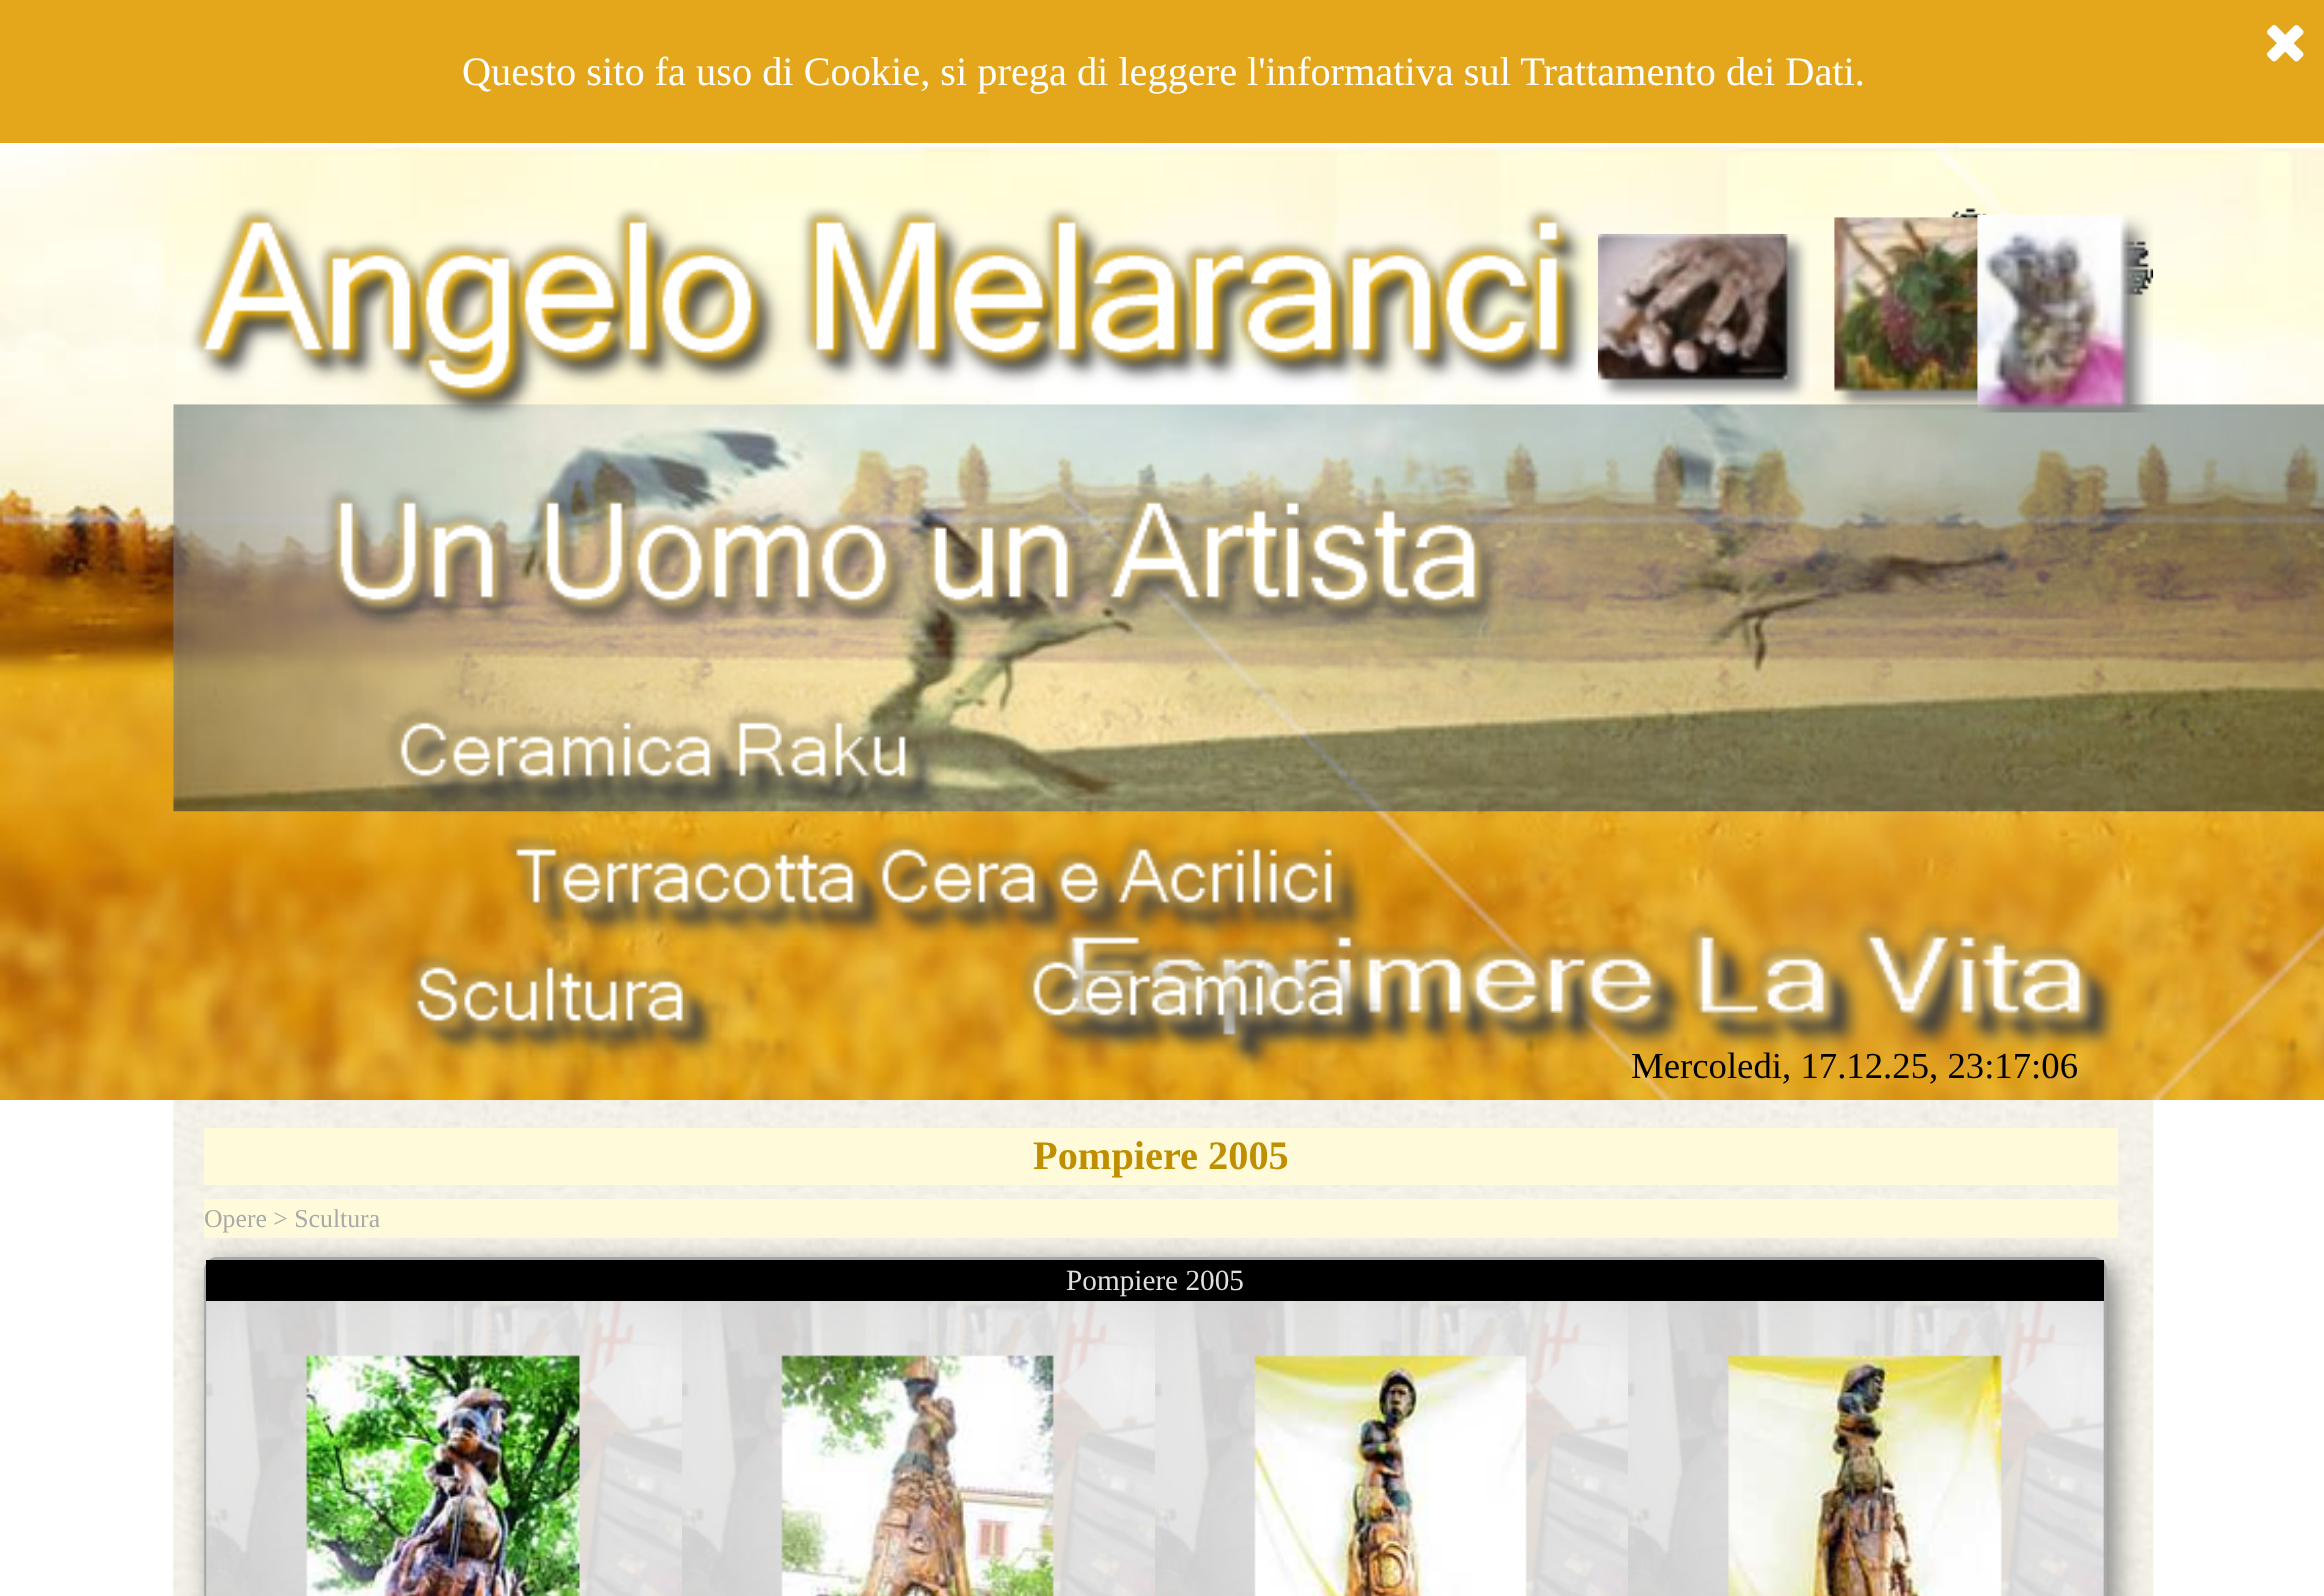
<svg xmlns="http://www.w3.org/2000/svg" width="2324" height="1596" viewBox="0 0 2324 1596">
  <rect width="100%" height="100%" fill="#fff"/>
  <path d="M0 0h2324v143H0z" fill="#e4a71b"/>
  <image x="2267" y="25" width="37" height="37" href="img/1.png"/>
  <image x="0" y="143" width="2324" height="957" href="img/2.png"/>
  <image x="173" y="404" width="2151" height="408" href="img/8.png"/>
  <image x="189" y="206" width="1399" height="216" href="img/3.png"/>
  <image x="1951" y="208" width="203" height="88" href="img/4.png"/>
  <image x="1834" y="217" width="243" height="193" href="img/7.png"/>
  <image x="1977" y="214" width="176" height="199" href="img/5.png"/>
  <image x="1597" y="233" width="212" height="168" href="img/6.png"/>
  <image x="324" y="487" width="1175" height="144" href="img/9.png"/>
  <image x="385" y="706" width="559" height="109" href="img/10.png"/>
  <image x="1055" y="920" width="1066" height="153" href="img/12.png"/>
  <image x="502" y="833" width="869" height="108" href="img/11.png"/>
  <image x="402" y="951" width="320" height="108" href="img/13.png"/>
  <image x="1017" y="946" width="364" height="108" href="img/14.png"/>
  <image x="173" y="1100" width="1981" height="496" href="img/15.png"/>
  <path d="M204 1128h1914v57H204z" fill="#fffbda"/>
  <path d="M204 1199h1914v39H204z" fill="#fffbda"/>
  <image x="203" y="1257" width="15" height="41" href="img/16.png"/>
  <rect x="212" y="1265" width="1903" height="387" rx="14" fill="#808080" filter="blur(14px)"/>
  <rect x="205.5" y="1258.5" width="1900" height="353" rx="12.5" fill="none" stroke="#a8a8a8" stroke-width="3"/>
  <path d="M206 1260h1898v41H206z" fill="#000"/>
  <image x="206" y="1301" width="476" height="295" href="img/17.png"/>
  <image x="682" y="1301" width="473" height="295" href="img/18.png"/>
  <image x="1155" y="1301" width="473" height="295" href="img/19.png"/>
  <image x="1628" y="1301" width="476" height="295" href="img/20.png"/>
  <text x="462" y="85" font-family="Liberation Serif" font-size="40.35" fill="#fff">Questo sito fa uso di Cookie, si prega di leggere l'informativa sul Trattamento dei Dati.</text>
  <text x="1631" y="1078" font-family="Liberation Serif" font-size="36.75" fill="#000">Mercoledi, 17.12.25, 23:17:06</text>
  <text x="1033" y="1169" font-family="Liberation Serif" font-size="40.35" font-weight="bold" fill="#bf8f00">Pompiere 2005</text>
  <text x="204" y="1227" font-family="Liberation Serif" font-size="25.75" fill="#a9a9a9">Opere &gt; Scultura</text>
  <text x="1066" y="1290" font-family="Liberation Serif" font-size="29.25" fill="#e0e0e0">Pompiere 2005</text>
</svg>
